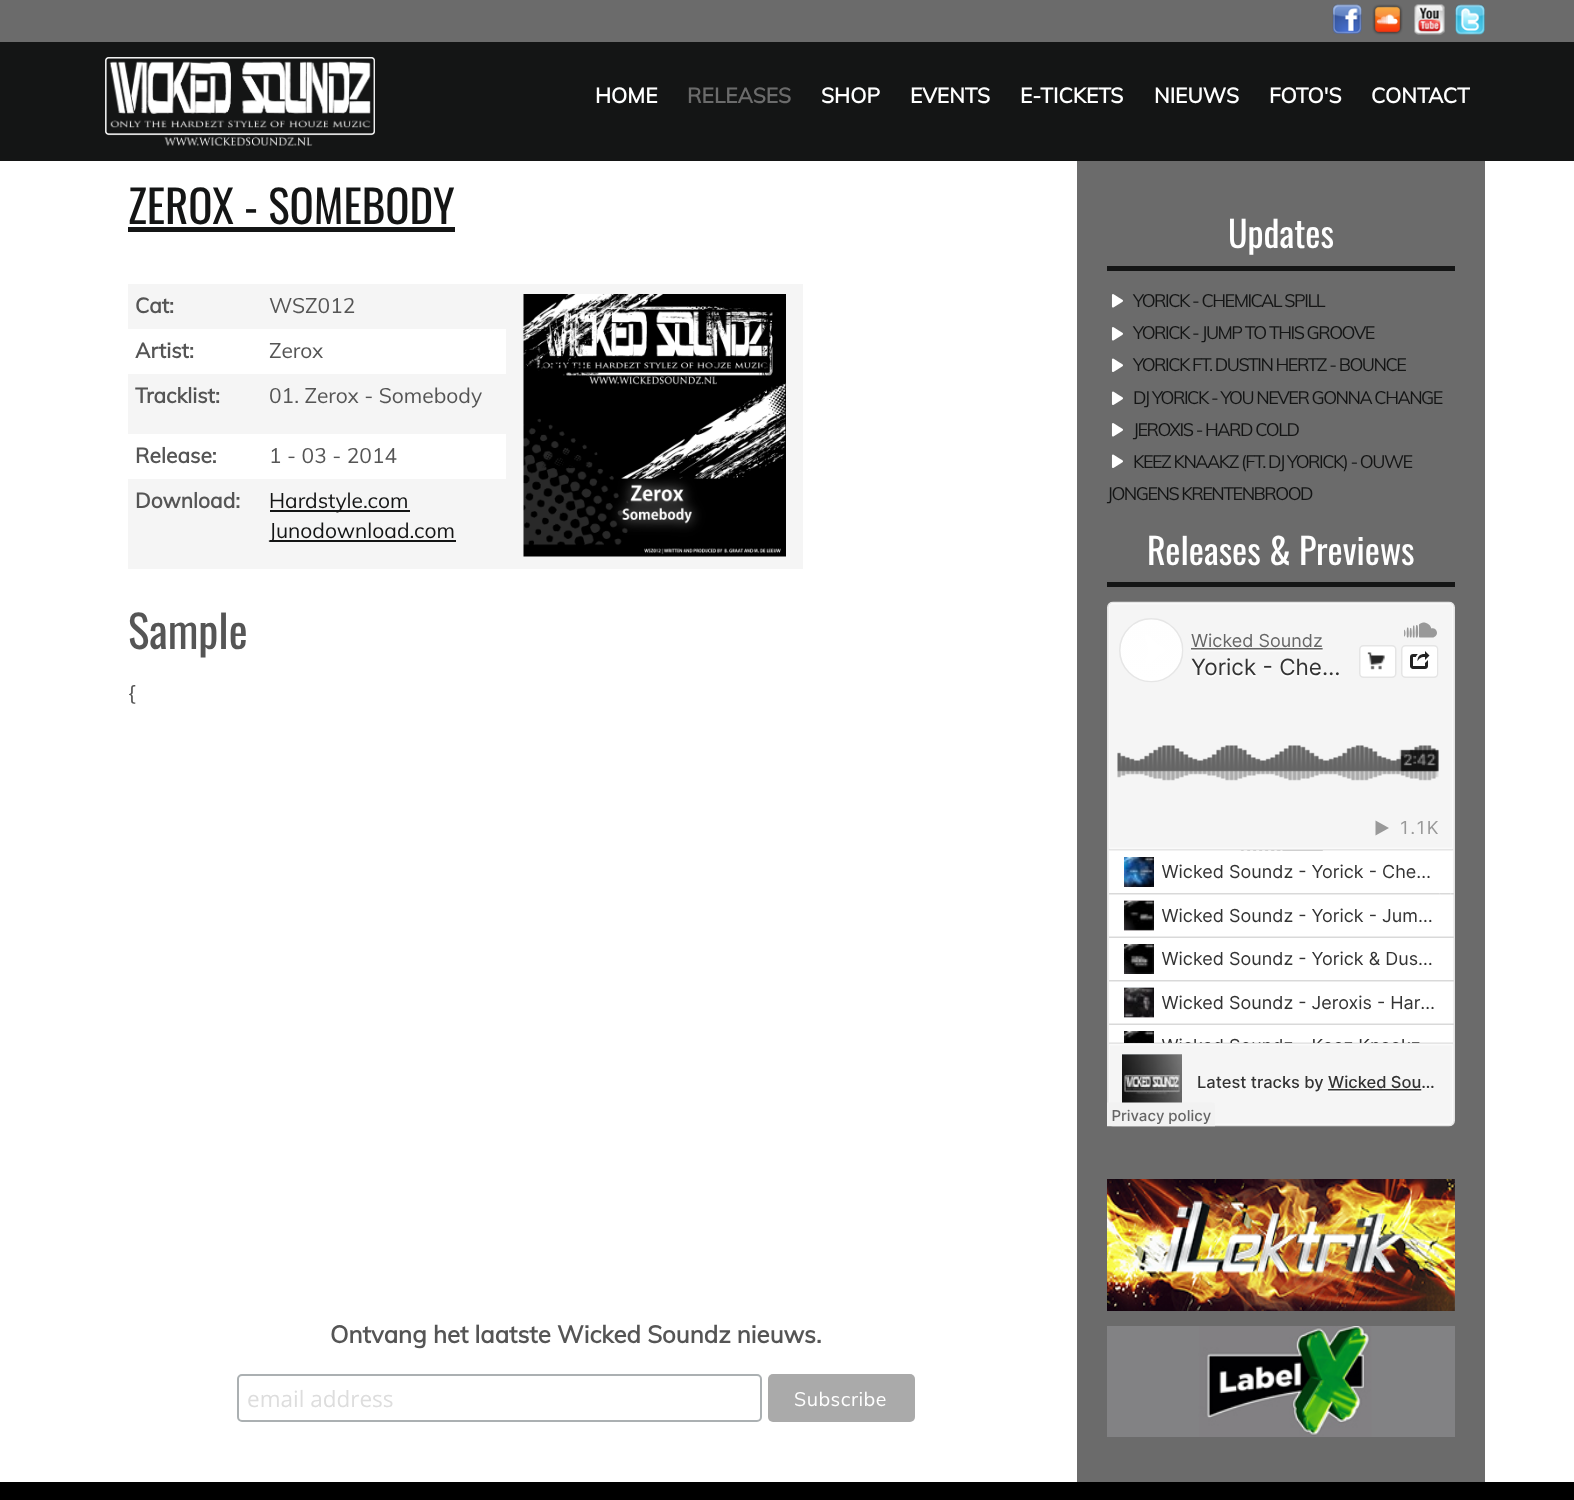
<svg xmlns="http://www.w3.org/2000/svg" width="1574" height="1500" viewBox="0 0 1574 1500">
  <rect width="100%" height="100%" fill="#6b6b6b"/>
  <image x="1332" y="4" width="30" height="30" href="img/1.png"/>
  <image x="1372" y="4" width="31" height="31" href="img/2.png"/>
  <image x="1414" y="4" width="31" height="31" href="img/3.png"/>
  <image x="1455" y="4" width="30" height="31" href="img/4.png"/>
  <path d="M0 42h1574v119H0z" fill="#141515"/>
  <image x="105" y="57" width="270" height="89" href="img/5.png"/>
  <path d="M0 161h1574v1321H0z" fill="#fff"/>
  <path d="M128 227h327v5H128z" fill="#141515"/>
  <path d="M128 284h378v45H128z" fill="#f5f5f5"/>
  <path d="M506 284h297v285H506z" fill="#f5f5f5"/>
  <image x="523" y="294" width="263" height="263" href="img/6.png"/>
  <path d="M128 374h378v60H128z" fill="#f5f5f5"/>
  <path d="M128 479h378v90H128z" fill="#f5f5f5"/>
  <path d="M270 510h140v2H270z" fill="#141515"/>
  <path d="M270 540h186v2H270z" fill="#141515"/>
  <rect x="238" y="1375" width="523" height="46" rx="4" fill="none" stroke="#abb0b2" stroke-width="2"/>
  <rect x="768" y="1374" width="147" height="48" rx="5" fill="#aaa"/>
  <path d="M1077 161h408v1321H1077z" fill="#6b6b6b"/>
  <path d="M1107 266h348v5H1107z" fill="#141515"/>
  <image x="1111" y="294" width="12" height="14" href="img/7.png"/>
  <image x="1111" y="327" width="12" height="14" href="img/7.png"/>
  <image x="1111" y="358" width="12" height="14" href="img/8.png"/>
  <image x="1111" y="391" width="12" height="14" href="img/8.png"/>
  <image x="1111" y="423" width="12" height="14" href="img/7.png"/>
  <image x="1111" y="454" width="12" height="14" href="img/8.png"/>
  <path d="M1107 582h348v5H1107z" fill="#141515"/>
  <image x="1107" y="601" width="348" height="526" href="img/9.png"/>
  <image x="1107" y="1179" width="348" height="132" href="img/10.png"/>
  <image x="1107" y="1326" width="348" height="111" href="img/11.png"/>
  <path d="M0 1482h1574v18H0z" fill="#000"/>
  <text x="595" y="103" font-family="Muli" font-size="21" font-weight="bold" fill="#fff">HOME</text>
  <text x="687" y="103" font-family="Muli" font-size="21" font-weight="bold" fill="#6b6b6b">RELEASES</text>
  <g font-family="Muli" font-size="21" font-weight="bold" fill="#fff">
    <text x="821" y="103">SHOP</text>
    <text x="910" y="103">EVENTS</text>
    <text x="1020" y="103">E-TICKETS</text>
    <text x="1154" y="103">NIEUWS</text>
    <text x="1269" y="103">FOTO'S</text>
    <text x="1371" y="103">CONTACT</text>
  </g>
  <text x="128" y="224" font-family="Oswald" font-size="45" fill="#141515">ZEROX - SOMEBODY</text>
  <text x="135" y="313" font-family="Muli" font-size="21" font-weight="bold" fill="#555">Cat:</text>
  <text x="269" y="313" font-family="Muli" font-size="21" fill="#555">WSZ012</text>
  <text x="135" y="358" font-family="Muli" font-size="21" font-weight="bold" fill="#555">Artist:</text>
  <text x="269" y="358" font-family="Muli" font-size="21" fill="#555">Zerox</text>
  <text x="135" y="403" font-family="Muli" font-size="21" font-weight="bold" fill="#555">Tracklist:</text>
  <text x="269" y="403" font-family="Muli" font-size="21" fill="#555">01. Zerox - Somebody</text>
  <text x="135" y="463" font-family="Muli" font-size="21" font-weight="bold" fill="#555">Release:</text>
  <text x="269" y="463" font-family="Muli" font-size="21" fill="#555">1 - 03 - 2014</text>
  <text x="135" y="508" font-family="Muli" font-size="21" font-weight="bold" fill="#555">Download:</text>
  <g font-family="Muli" font-size="21" fill="#141515">
    <text x="269" y="508">Hardstyle.com</text>
    <text x="269" y="538">Junodownload.com</text>
  </g>
  <text x="128" y="649" font-family="Oswald" font-size="45" fill="#555">Sample</text>
  <text x="128" y="700" font-family="Muli" font-size="21" fill="#555">{</text>
  <text x="330" y="1343" font-family="Muli" font-size="24" font-weight="bold" fill="#555">Ontvang het laatste Wicked Soundz nieuws.</text>
  <text x="247" y="1407" font-family="Open Sans" font-size="22.5" fill="#ddd">email address</text>
  <text x="794" y="1406" font-family="Muli" font-size="19.5" letter-spacing="0.5" fill="#fff">Subscribe</text>
  <text x="1228" y="248" font-family="Oswald" font-size="36" fill="#fff">Updates</text>
  <g font-family="Muli" font-size="18" letter-spacing="-1.5" fill="#141515">
    <text x="1133" y="307">YORICK - CHEMICAL SPILL</text>
    <text x="1133" y="339">YORICK - JUMP TO THIS GROOVE</text>
    <text x="1133" y="371">YORICK FT. DUSTIN HERTZ - BOUNCE</text>
    <text x="1133" y="404">DJ YORICK - YOU NEVER GONNA CHANGE</text>
    <text x="1133" y="436">JEROXIS - HARD COLD</text>
    <text x="1133" y="468">KEEZ KNAAKZ (FT. DJ YORICK) - OUWE</text>
    <text x="1107" y="500">JONGENS KRENTENBROOD</text>
  </g>
  <text x="1147" y="565" font-family="Oswald" font-size="36" fill="#fff">Releases &amp; Previews</text>
</svg>
